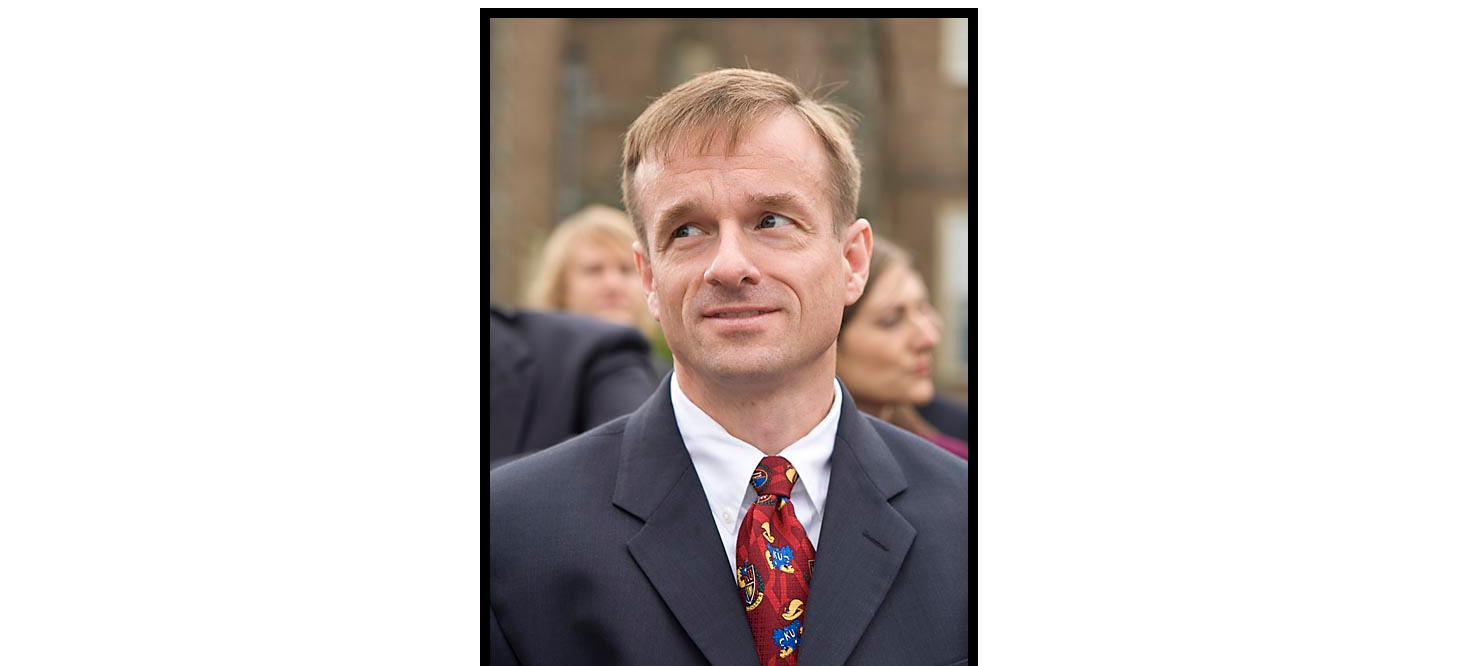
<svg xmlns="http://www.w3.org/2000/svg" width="1458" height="666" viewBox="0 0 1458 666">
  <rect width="100%" height="100%" fill="#fff"/>
  <image x="480" y="8" width="498" height="658" href="img/1.png"/>
</svg>
